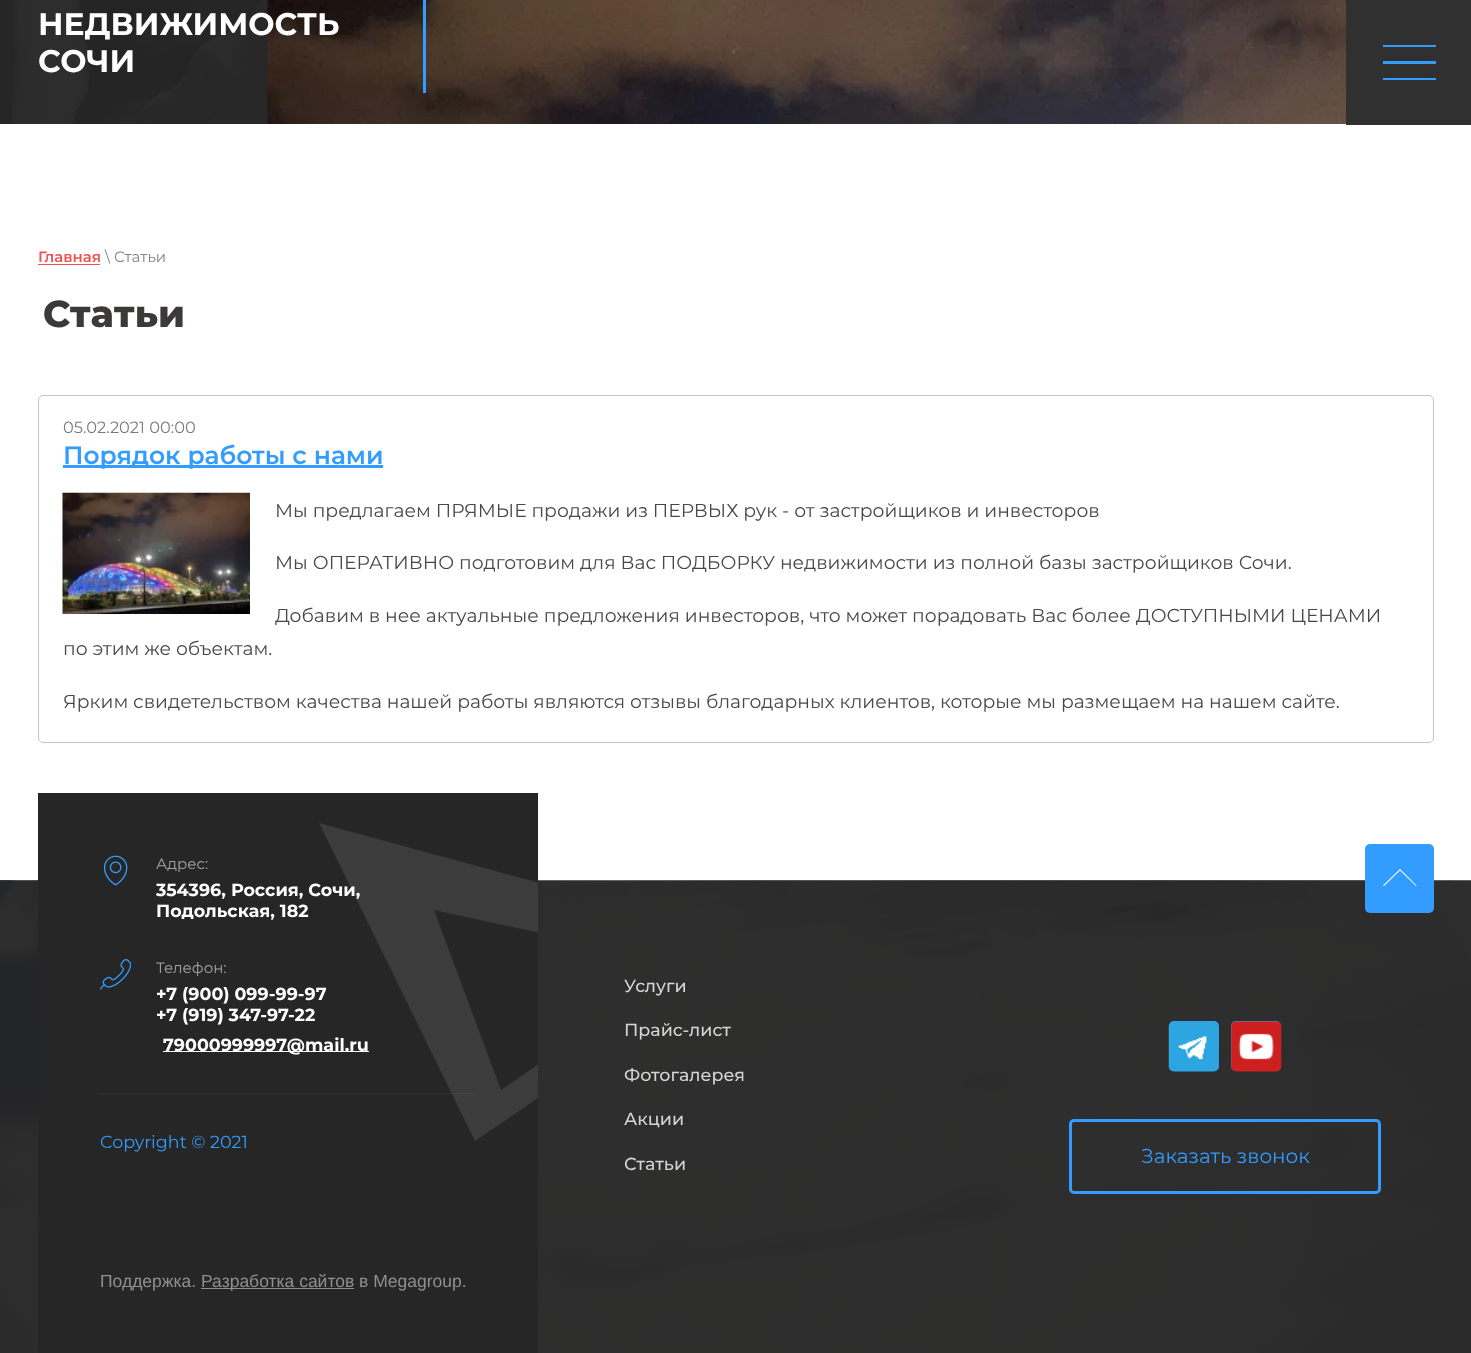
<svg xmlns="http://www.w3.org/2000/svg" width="1471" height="1353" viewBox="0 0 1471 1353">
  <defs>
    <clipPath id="clip1"><path d="M319 823h219v318H319z"/></clipPath>
  </defs>
  <rect width="100%" height="100%" fill="#fff"/>
  <path d="M0 0h268v124H0z" fill="#262626"/>
  <image x="12" y="0" width="1334" height="124" href="img/1.png"/>
  <path d="M423 0h3v93H423z" fill="#339cff"/>
  <path d="M1346 0h125v125H1346z" fill="#303030"/>
  <path d="M1383 47H1436V45H1383ZM1383 64H1436V61H1383ZM1383 80H1436V78H1383Z" fill="#339cff" fill-rule="evenodd"/>
  <path d="M38 264h62v1H38z" fill="#f0524f"/>
  <rect x="38.5" y="395.5" width="1395" height="347" rx="4.5" fill="none" stroke="#c5c5c5"/>
  <path d="M63 465h320v3H63z" fill="#339cff"/>
  <image x="62" y="492" width="188" height="122" href="img/2.png"/>
  <image x="0" y="880" width="1471" height="473" href="img/3.png"/>
  <path d="M38 793h500v560H38z" fill="#262626"/>
  <g clip-path="url(#clip1)">
    <path d="M764 944L475 1141L319 823L764 944M501 1090L684 964L434 910L501 1090" fill="#3c3c3c" fill-rule="evenodd"/>
  </g>
  <image x="103" y="855" width="25" height="31" href="img/4.png"/>
  <image x="100" y="959" width="31" height="31" href="img/5.png"/>
  <path d="M163 1051h206v1H163z" fill="#fff"/>
  <path d="M100 1093h375v1H100z" fill="#ffffff0d"/>
  <path d="M201 1288h153v1H201z" fill="#8f8f8f"/>
  <rect x="1365" y="844" width="69" height="69" rx="5" fill="#339cff"/>
  <path d="M1384 886L1400 870.5L1416 886L1416.5 885.5L1400 869L1383 885.5Z" fill="#fff"/>
  <rect x="1169" y="1021" width="50" height="50" rx="5" fill="#339cff"/>
  <image x="1168" y="1021" width="51" height="51" href="img/6.png"/>
  <rect x="1231" y="1021" width="50" height="50" rx="5" fill="#339cff"/>
  <image x="1231" y="1021" width="51" height="51" href="img/7.png"/>
  <rect x="1070.5" y="1120.5" width="309" height="72" rx="3.5" fill="none" stroke="#339cff" stroke-width="3"/>
  <g font-family="Montserrat" font-size="31.25" font-weight="bold" fill="#fff">
    <text x="38" y="35">НЕДВИЖИМОСТЬ</text>
    <text x="38" y="72">СОЧИ</text>
  </g>
  <text x="38" y="262" font-family="Montserrat" font-size="15" font-weight="600" fill="#f0524f">Главная</text>
  <text x="105" y="262" font-family="Montserrat" font-size="15" fill="#828282">\ Статьи</text>
  <text x="43" y="327" font-family="Montserrat" font-size="37.5" font-weight="800" fill="#3c3939">Статьи</text>
  <text x="63" y="433" font-family="Montserrat" font-size="16.25" fill="#7b7b7b">05.02.2021 00:00</text>
  <text x="63" y="464" font-family="Montserrat" font-size="25" font-weight="600" fill="#339cff">Порядок работы с нами</text>
  <g font-family="Montserrat" font-size="18.75" fill="#484848">
    <text x="275" y="517">Мы предлагаем ПРЯМЫЕ продажи из ПЕРВЫХ рук - от застройщиков и инвесторов</text>
    <text x="275" y="569">Мы ОПЕРАТИВНО подготовим для Вас ПОДБОРКУ недвижимости из полной базы застройщиков Сочи.</text>
    <text x="275" y="622">Добавим в нее актуальные предложения инвесторов, что может порадовать Вас более ДОСТУПНЫМИ ЦЕНАМИ</text>
    <text x="63" y="655">по этим же объектам.</text>
    <text x="63" y="708">Ярким свидетельством качества нашей работы являются отзывы благодарных клиентов, которые мы размещаем на нашем сайте.</text>
  </g>
  <text x="156" y="869" font-family="Montserrat" font-size="15" fill="#a3a3a3">Адрес:</text>
  <g font-family="Montserrat" font-size="17.5" font-weight="bold" fill="#fff">
    <text x="156" y="896">354396, Россия, Сочи,</text>
    <text x="156" y="917">Подольская, 182</text>
  </g>
  <text x="156" y="973" font-family="Montserrat" font-size="15" fill="#a3a3a3">Телефон:</text>
  <g font-family="Montserrat" font-size="17.5" font-weight="bold" fill="#fff">
    <text x="156" y="1000">+7 (900) 099-99-97</text>
    <text x="156" y="1021">+7 (919) 347-97-22</text>
    <text x="163" y="1051">79000999997@mail.ru</text>
  </g>
  <text x="100" y="1148" font-family="Montserrat" font-size="17.5" fill="#339cff">Copyright © 2021</text>
  <g font-family="Liberation Sans" font-size="17.5" fill="#8f8f8f">
    <text x="100" y="1287">Поддержка.</text>
    <text x="201" y="1287">Разработка сайтов в Megagroup.</text>
  </g>
  <g font-family="Montserrat" font-size="17.5" font-weight="500" fill="#d5d5d5">
    <text x="624" y="992">Услуги</text>
    <text x="624" y="1036">Прайс-лист</text>
    <text x="624" y="1081">Фотогалерея</text>
    <text x="624" y="1125">Акции</text>
    <text x="624" y="1170">Статьи</text>
  </g>
  <text x="1141" y="1163" font-family="Montserrat" font-size="20" fill="#339cff">Заказать звонок</text>
</svg>
